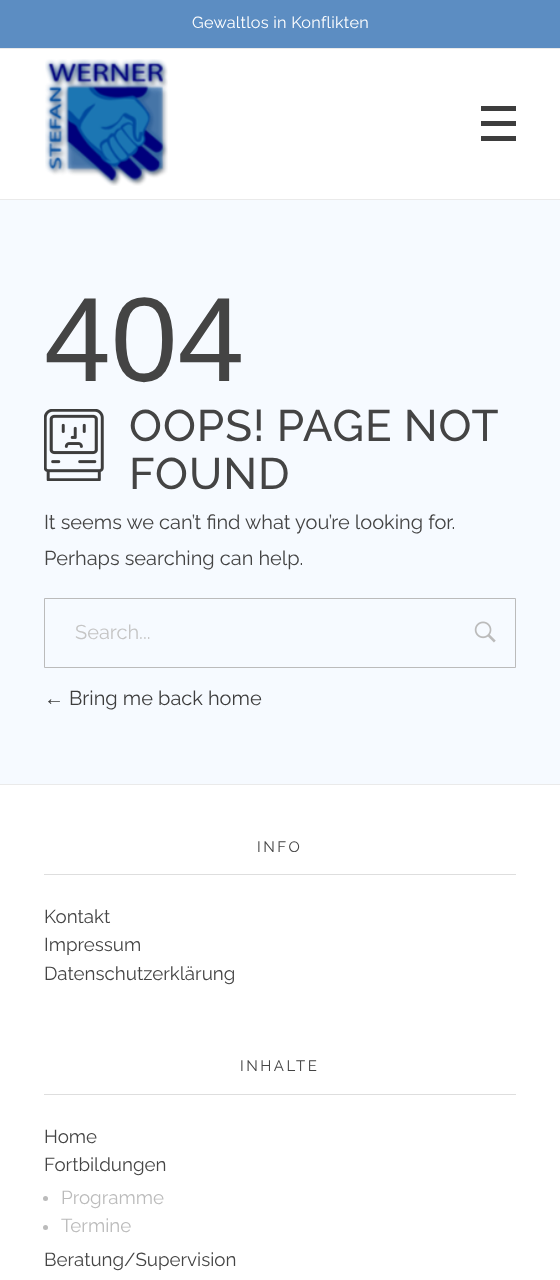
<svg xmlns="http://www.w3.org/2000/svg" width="560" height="1280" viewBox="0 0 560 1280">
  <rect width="100%" height="100%" fill="#f6faff"/>
  <path d="M0 0h560v48H0z" fill="#5c8dc2"/>
  <path d="M0 48h560v1H0z" fill="#eaeaea"/>
  <path d="M0 49h560v150H0z" fill="#fff"/>
  <path d="M0 199h560v1H0z" fill="#eaeaea"/>
  <image x="45" y="59" width="123" height="127" href="img/1.png"/>
  <path d="M481 106h35v5H481z" fill="#3d3d3d"/>
  <path d="M481 121h35v5H481z" fill="#3d3d3d"/>
  <path d="M481 136h35v5H481z" fill="#3d3d3d"/>
  <image x="44" y="409" width="60" height="72" href="img/2.png"/>
  <path d="M44.5 598.5h471v69H44.5z" fill="none" stroke="#bbb"/>
  <image x="474" y="621" width="22" height="22" href="img/3.png"/>
  <path d="M0 785h560v495H0z" fill="#fff"/>
  <path d="M0 784h560v1H0z" fill="#eaeaea"/>
  <path d="M44 874h472v1H44z" fill="#dedede"/>
  <path d="M44 1094h472v1H44z" fill="#dedede"/>
  <circle cx="45.5" cy="1198.5" r="2.5" fill="#bbb"/>
  <circle cx="45.5" cy="1227.5" r="2.5" fill="#bbb"/>
  <text x="192" y="28" font-family="Raleway" font-size="16.25" letter-spacing="0.25" fill="#fff">Gewaltlos in Konflikten</text>
  <text x="44" y="381" font-family="Liberation Sans" font-size="120" fill="#444">404</text>
  <g font-family="Raleway" font-size="44" font-weight="500" letter-spacing="1" fill="#444">
    <text x="129" y="441" word-spacing="-1">OOPS! PAGE NOT</text>
    <text x="129" y="489">FOUND</text>
  </g>
  <g font-family="Raleway" font-size="20" fill="#444">
    <text x="44" y="529">It seems we can’t find what you’re looking for.</text>
    <text x="44" y="565">Perhaps searching can help.</text>
  </g>
  <text x="75" y="639" font-family="Raleway" font-size="20" fill="#c5c5c5">Search...</text>
  <text x="44" y="705" font-family="Liberation Sans" font-size="20" fill="#3d3d3d">←</text>
  <text x="69" y="705" font-family="Raleway" font-size="20" fill="#3d3d3d">Bring me back home</text>
  <text x="257" y="852" font-family="Raleway" font-size="15" letter-spacing="2.5" fill="#444">INFO</text>
  <g font-family="Raleway" font-size="18.75" fill="#444">
    <text x="44" y="923">Kontakt</text>
    <text x="44" y="951">Impressum</text>
    <text x="44" y="980">Datenschutzerklärung</text>
  </g>
  <text x="240" y="1071" font-family="Raleway" font-size="15" letter-spacing="2.5" fill="#444">INHALTE</text>
  <g font-family="Raleway" font-size="18.75" fill="#444">
    <text x="44" y="1143">Home</text>
    <text x="44" y="1171">Fortbildungen</text>
  </g>
  <g font-family="Raleway" font-size="18.75" fill="#bbb">
    <text x="61" y="1204">Programme</text>
    <text x="61" y="1232">Termine</text>
  </g>
  <text x="44" y="1266" font-family="Raleway" font-size="18.75" fill="#444">Beratung/Supervision</text>
</svg>
